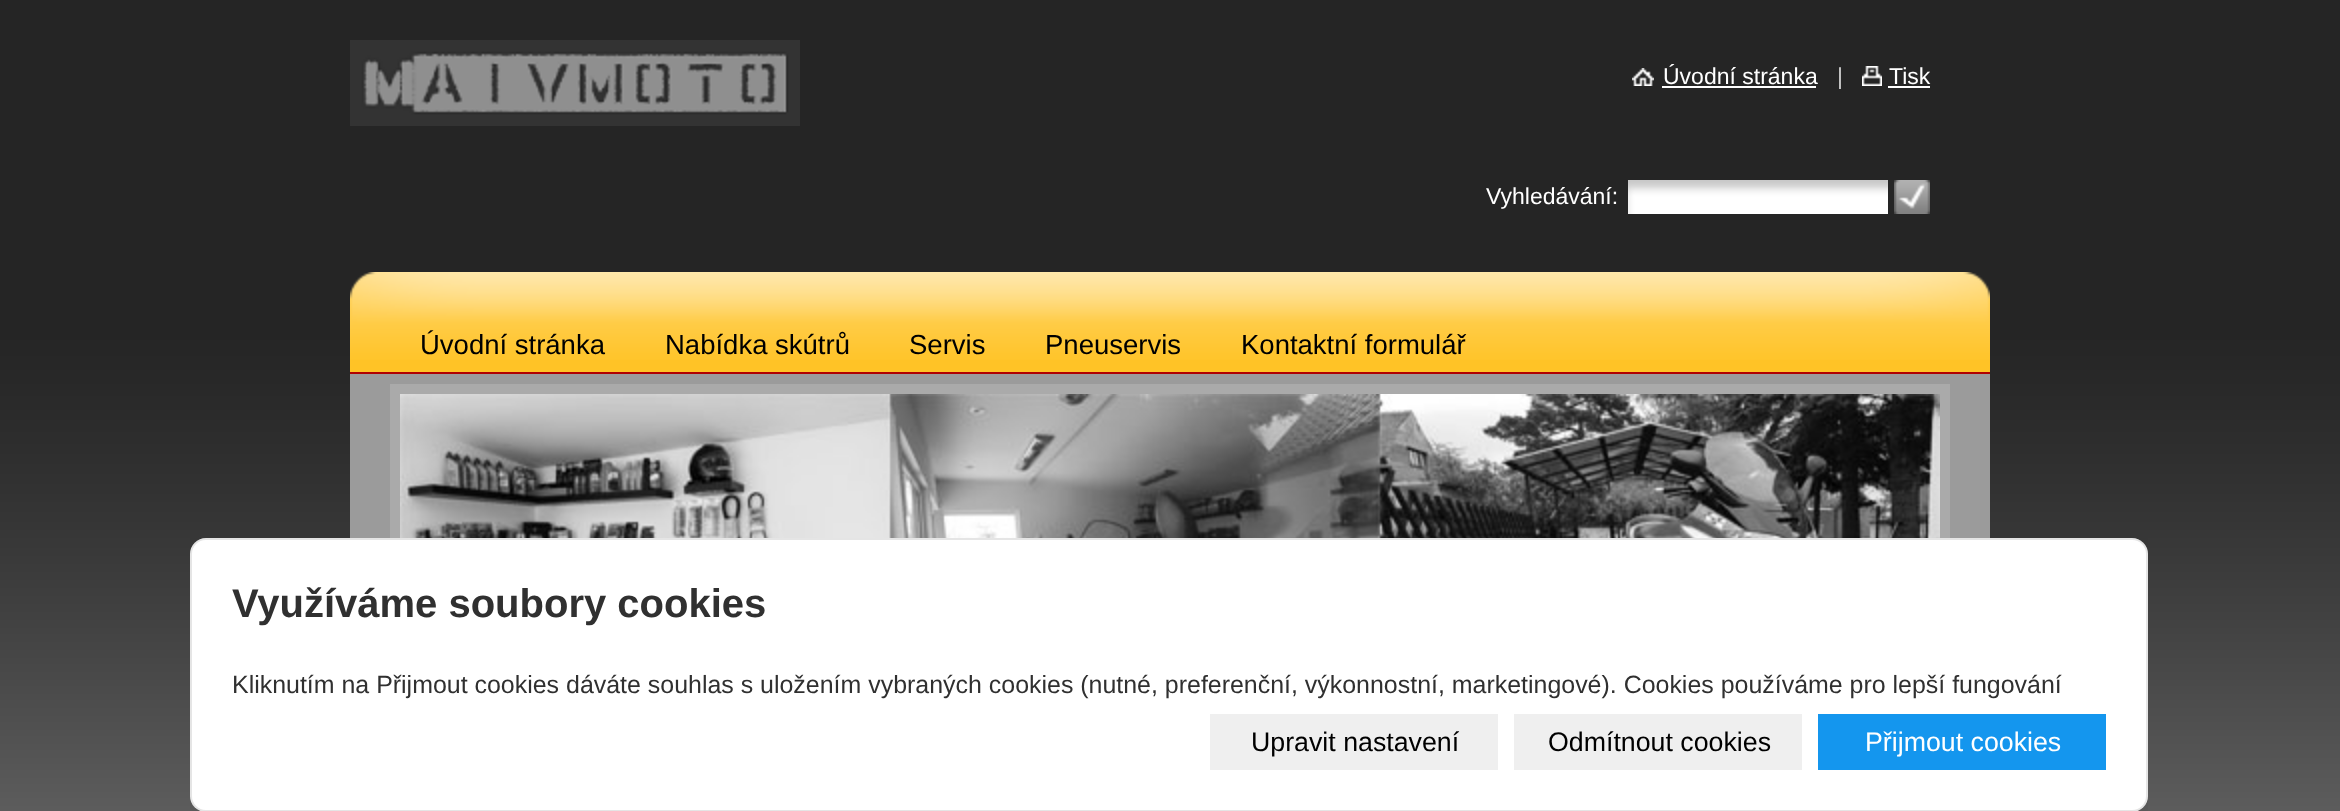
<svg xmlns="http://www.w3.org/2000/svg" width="2340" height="811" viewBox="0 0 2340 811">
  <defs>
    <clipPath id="clip1"><path d="M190 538h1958v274H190z"/></clipPath>
  </defs>
  <rect width="100%" height="100%" fill="#fff"/>
  <image x="0" y="0" width="2340" height="811" href="img/1.png"/>
  <image x="350" y="40" width="450" height="86" href="img/2.png"/>
  <image x="1632" y="68" width="22" height="18" href="img/3.png"/>
  <path d="M1662 86h154v2H1662z" fill="#fff"/>
  <image x="1862" y="66" width="20" height="20" href="img/4.png"/>
  <path d="M1888 86h42v2H1888z" fill="#fff"/>
  <image x="1628" y="180" width="260" height="34" href="img/5.png"/>
  <image x="1894" y="180" width="36" height="34" href="img/6.png"/>
  <path d="M350 360h1640v12H350z" fill="#ffc326"/>
  <image x="350" y="272" width="1640" height="88" href="img/7.png"/>
  <path d="M350 372h1640v2H350z" fill="#b00101"/>
  <path d="M350 374h1640v164H350z" fill="#9b9b9b"/>
  <path d="M390 384h1560v154H390z" fill="#aaa"/>
  <image x="400" y="394" width="1540" height="144" href="img/8.png"/>
  <g clip-path="url(#clip1)">
    <path d="M210 562h1918v234H210z" fill="#00000080" filter="blur(20px)"/>
  </g>
  <rect x="190" y="538" width="1958" height="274" rx="16" fill="#fff"/>
  <rect x="191" y="539" width="1956" height="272" rx="15" fill="none" stroke="#0000001a" stroke-width="2"/>
  <path d="M1210 714h288v56H1210z" fill="#efefef"/>
  <path d="M1514 714h288v56H1514z" fill="#efefef"/>
  <path d="M1818 714h288v56H1818z" fill="#1496ee"/>
  <text x="1663" y="84" font-family="Liberation Sans" font-size="23" fill="#fff">Úvodní stránka</text>
  <text x="1837" y="84" font-family="Liberation Sans" font-size="23" fill="#ccc">|</text>
  <g font-family="Liberation Sans" font-size="23" fill="#fff">
    <text x="1889" y="84">Tisk</text>
    <text x="1486" y="204">Vyhledávání:</text>
  </g>
  <g font-family="Liberation Sans" font-size="27.5" fill="#000">
    <text x="420" y="354">Úvodní stránka</text>
    <text x="665" y="354">Nabídka skútrů</text>
    <text x="909" y="354">Servis</text>
    <text x="1045" y="354">Pneuservis</text>
    <text x="1241" y="354">Kontaktní formulář</text>
  </g>
  <text x="232" y="617" font-family="Liberation Sans" font-size="40" font-weight="bold" fill="#303030">Využíváme soubory cookies</text>
  <text x="232" y="693" font-family="Liberation Sans" font-size="24.95" fill="#303030">Kliknutím na Přijmout cookies dáváte souhlas s uložením vybraných cookies (nutné, preferenční, výkonnostní, marketingové). Cookies používáme pro lepší fungování</text>
  <g font-family="Liberation Sans" font-size="26.75" fill="#000">
    <text x="1251" y="751">Upravit nastavení</text>
    <text x="1548" y="751">Odmítnout cookies</text>
  </g>
  <text x="1865" y="751" font-family="Liberation Sans" font-size="26.75" fill="#fff">Přijmout cookies</text>
</svg>
